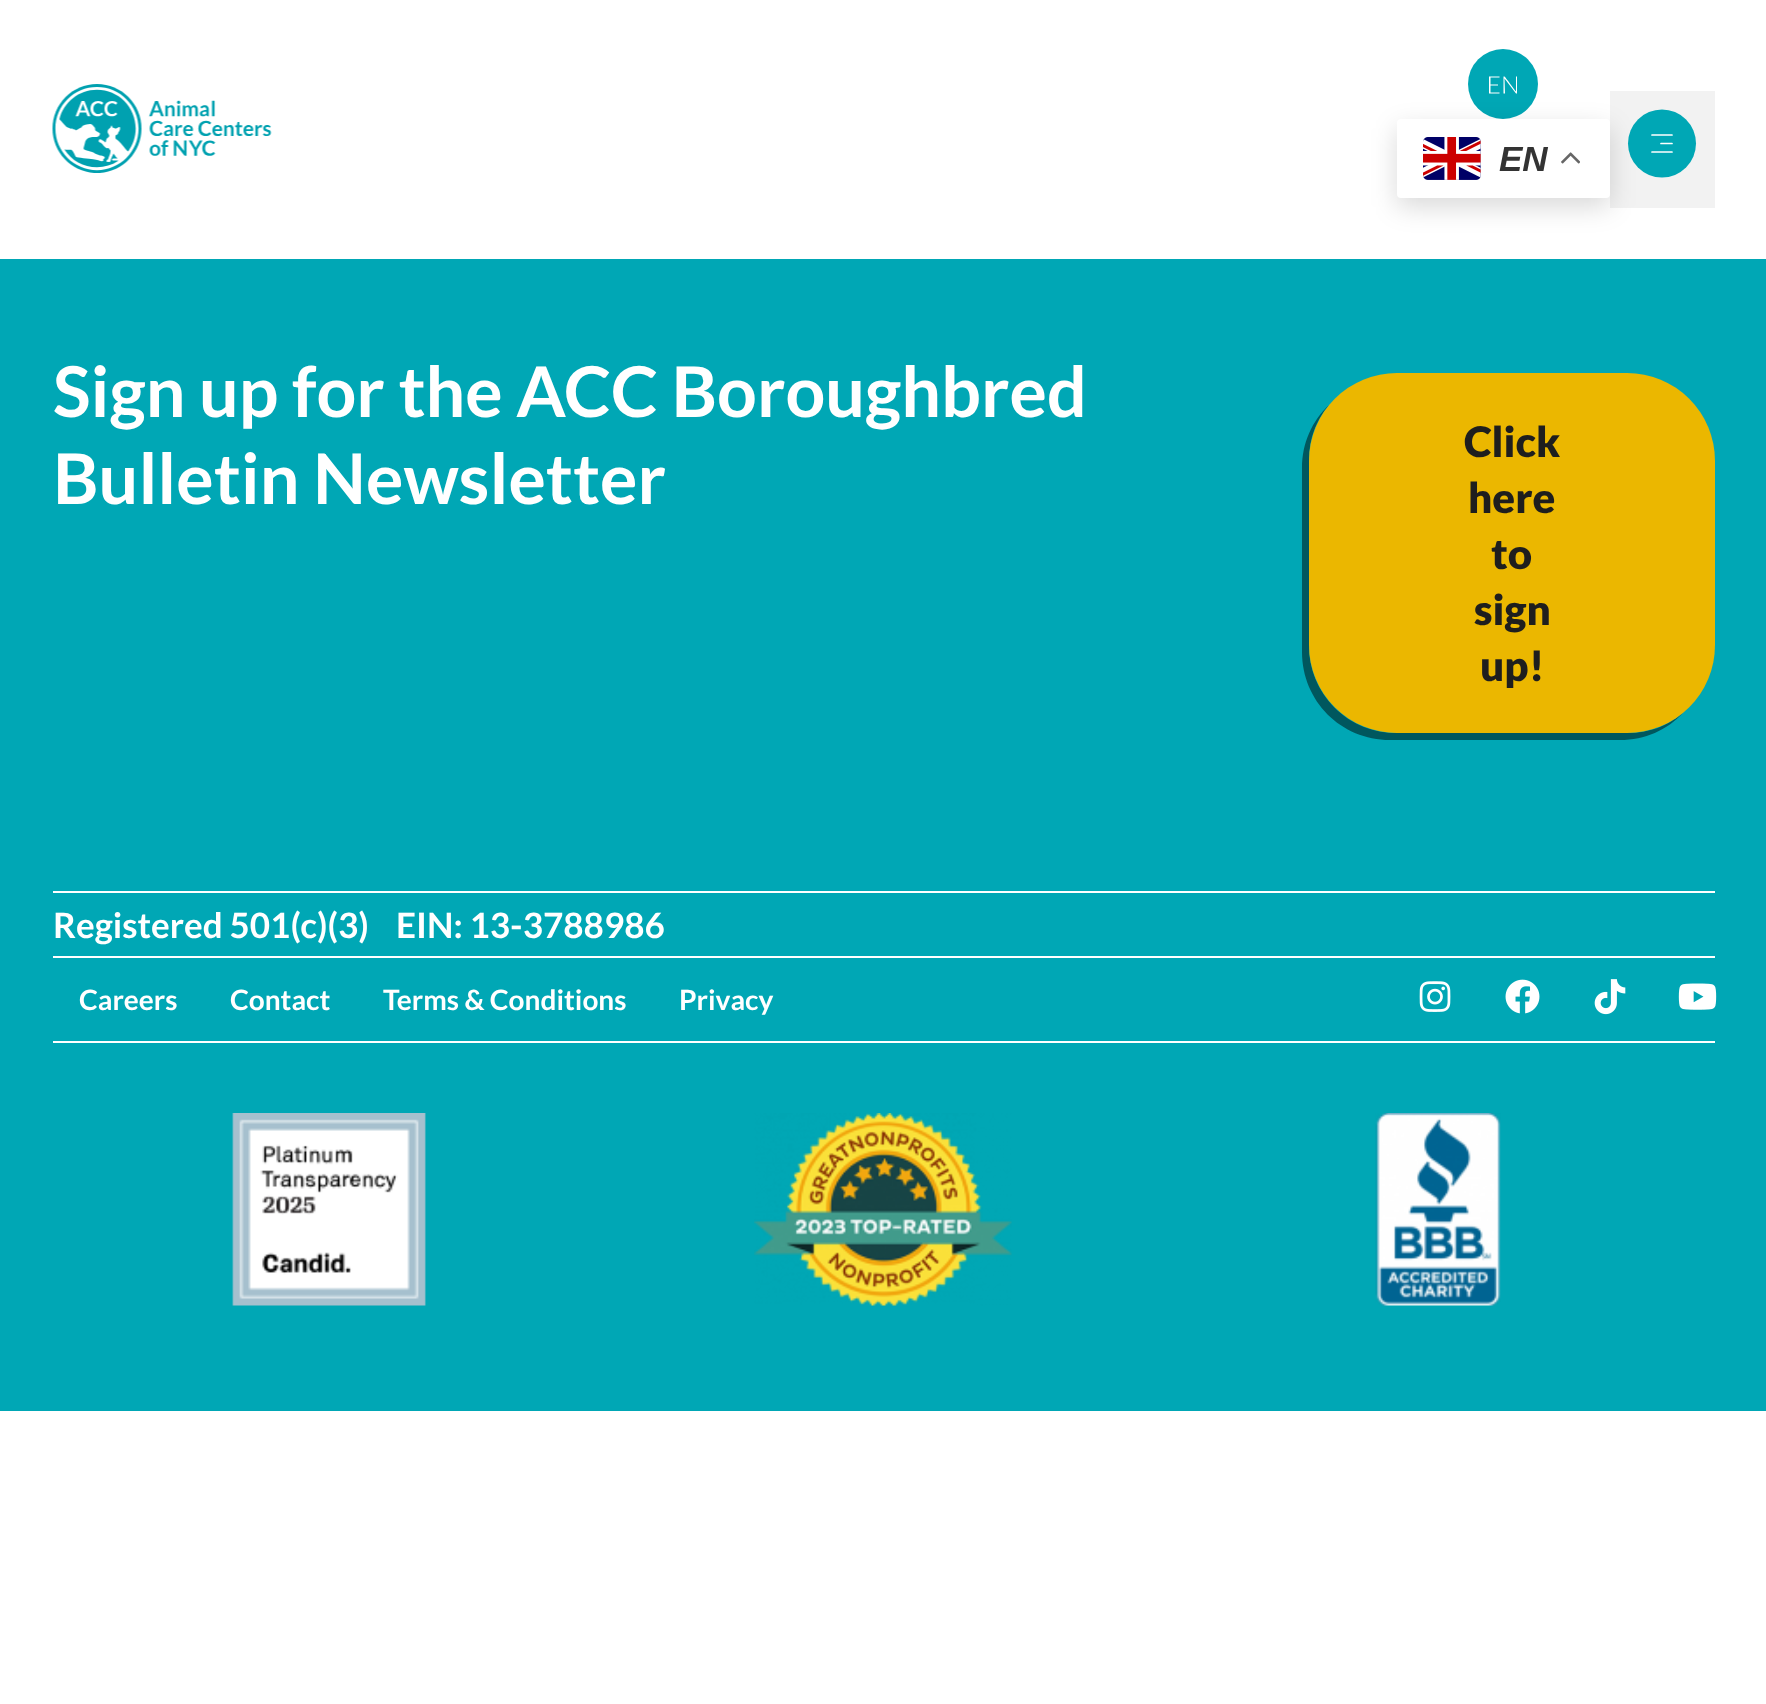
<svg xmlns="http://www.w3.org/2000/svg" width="1766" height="1704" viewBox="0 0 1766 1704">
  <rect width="100%" height="100%" fill="#fff"/>
  <image x="52" y="84" width="220" height="89" href="img/1.png"/>
  <circle cx="1503" cy="84" r="35" fill="#00a7b5"/>
  <path d="M1499.5 76.5V77.5H1490.5V84.5H1498V85.5H1490.5V92.5H1499.5V93.5H1489V76.5ZM1504.5 76.5C1505 76.5 1514.5 90 1516 91.5V76.5H1517V93.5H1516L1504.5 78.5L1505 93.5H1503.5V76.5Z" fill="#fff"/>
  <rect x="1397" y="128" width="213" height="79" rx="4" fill="#00000026" filter="blur(13px)"/>
  <rect x="1397" y="119" width="213" height="79" rx="4" fill="#fff"/>
  <image x="1423" y="137" width="58" height="43" href="img/2.png"/>
  <image x="1561" y="152" width="19" height="12" href="img/3.png"/>
  <path d="M1610 91h105v117H1610z" fill="#0000000d"/>
  <circle cx="1662" cy="143.5" r="34" fill="#00a7b5"/>
  <path d="M1652 135H1672M1661 143.5H1672M1652 152H1672" fill="none" stroke="#fff" stroke-width="1.7" stroke-linecap="round"/>
  <path d="M0 259h1766v1152H0z" fill="#00a7b5"/>
  <path d="M1329 405C1312 421 1302 443 1302 468V652C1302 701 1341 740 1390 740H1620C1645 740 1667 730 1683 713C1668 726 1649 733 1628 733H1396C1348 733 1309 694 1309 646V460C1309 439 1316 420 1329 405Z" fill="#00575e"/>
  <rect x="1309" y="373" width="406" height="360" rx="88" fill="#ebb700"/>
  <path d="M53 891h1662v2H53z" fill="#fff"/>
  <path d="M53 956h1662v2H53z" fill="#fff"/>
  <image x="1419" y="981" width="32" height="31" href="img/4.png"/>
  <image x="1505" y="979" width="35" height="35" href="img/5.png"/>
  <image x="1594" y="979" width="32" height="36" href="img/6.png"/>
  <image x="1678" y="983" width="39" height="27" href="img/7.png"/>
  <path d="M53 1041h1662v2H53z" fill="#fff"/>
  <image x="232" y="1113" width="194" height="193" href="img/8.png"/>
  <image x="754" y="1113" width="258" height="193" href="img/9.png"/>
  <image x="1375" y="1113" width="126" height="193" href="img/10.png"/>
  <text x="1499" y="171" font-family="Liberation Sans" font-size="35" font-weight="bold" font-style="italic" fill="#333">EN</text>
  <g font-family="Lato" font-size="70" font-weight="bold" fill="#fff">
    <text x="53" y="417">Sign up for the ACC Boroughbred</text>
    <text x="53" y="504">Bulletin Newsletter</text>
  </g>
  <g font-family="Lato" font-size="42" font-weight="900" fill="#1e1e1e">
    <text x="1464" y="457">Click</text>
    <text x="1468" y="513">here</text>
    <text x="1491" y="569">to</text>
    <text x="1474" y="625">sign</text>
    <text x="1480" y="681">up!</text>
  </g>
  <g font-family="Lato" font-size="35" font-weight="bold" fill="#fff">
    <text x="53" y="938">Registered 501(c)(3)</text>
    <text x="396" y="938">EIN: 13-3788986</text>
  </g>
  <g font-family="Lato" font-size="28" font-weight="bold" fill="#fff">
    <text x="79" y="1010">Careers</text>
    <text x="230" y="1010">Contact</text>
    <text x="383" y="1010">Terms &amp; Conditions</text>
    <text x="679" y="1010">Privacy</text>
  </g>
</svg>
